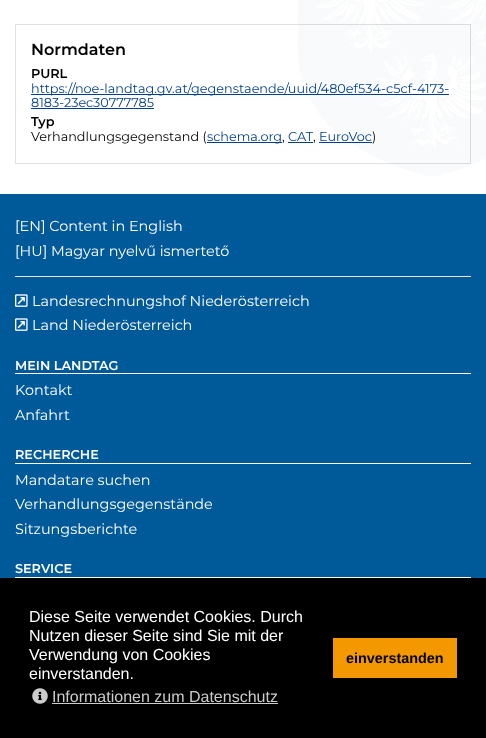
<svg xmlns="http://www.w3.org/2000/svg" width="486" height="738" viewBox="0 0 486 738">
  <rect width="100%" height="100%" fill="#005a9a"/>
  <path d="M0 0h486v194H0z" fill="#fff"/>
  <image x="298" y="0" width="188" height="176" href="img/1.png"/>
  <path d="M15.5 24.5h455v139H15.5z" fill="none" stroke="#0000001f"/>
  <path d="M31 94h418v1H31z" fill="#00408a"/>
  <path d="M31 108h123v1H31z" fill="#00408a"/>
  <path d="M207 142h75v1H207z" fill="#00408a"/>
  <path d="M288 142h25v1H288z" fill="#00408a"/>
  <path d="M319 142h53v1H319z" fill="#00408a"/>
  <path d="M15 276h456v1H15z" fill="#e3e3e3"/>
  <image x="15" y="294" width="13" height="13" href="img/2.png"/>
  <image x="15" y="318" width="13" height="13" href="img/2.png"/>
  <path d="M15 373h456v1H15z" fill="#fff"/>
  <path d="M15 463h456v1H15z" fill="#fff"/>
  <path d="M15 577h456v1H15z" fill="#fff"/>
  <path d="M0 578h486v160H0z" fill="#000"/>
  <image x="32" y="688" width="16" height="16" href="img/3.png"/>
  <path d="M52 703h226v1H52z" fill="#ccc"/>
  <path d="M333 638h124v40H333z" fill="#f49800"/>
  <text x="31" y="55" font-family="Montserrat" font-size="16" font-weight="100" fill="#000">Normdaten</text>
  <text x="31" y="78" font-family="Montserrat" font-size="12.8" font-weight="100" fill="#000">PURL</text>
  <g font-family="'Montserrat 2'" font-size="12.8" font-weight="100" fill="#00408a">
    <text x="31" y="93">https://noe-landtag.gv.at/gegenstaende/uuid/480ef534-c5cf-4173-</text>
    <text x="31" y="107">8183-23ec30777785</text>
  </g>
  <text x="31" y="126" font-family="Montserrat" font-size="12.8" font-weight="100" fill="#000">Typ</text>
  <text x="31" y="141" font-family="'Montserrat 2'" font-size="12.8" font-weight="100" fill="#000">Verhandlungsgegenstand (</text>
  <text x="207" y="141" font-family="'Montserrat 2'" font-size="12.8" font-weight="100" fill="#00408a">schema.org</text>
  <text x="282" y="141" font-family="'Montserrat 2'" font-size="12.8" font-weight="100" fill="#000">,</text>
  <text x="288" y="141" font-family="'Montserrat 2'" font-size="12.8" font-weight="100" fill="#00408a">CAT</text>
  <text x="313" y="141" font-family="'Montserrat 2'" font-size="12.8" font-weight="100" fill="#000">,</text>
  <text x="319" y="141" font-family="'Montserrat 2'" font-size="12.8" font-weight="100" fill="#00408a">EuroVoc</text>
  <text x="372" y="141" font-family="'Montserrat 2'" font-size="12.8" font-weight="100" fill="#000">)</text>
  <g font-family="'Montserrat 2'" font-size="14.4" font-weight="100" fill="#fff">
    <text x="15" y="231">[EN] Content in English</text>
    <text x="15" y="256">[HU] Magyar nyelvű ismertető</text>
    <text x="32" y="306">Landesrechnungshof Niederösterreich</text>
    <text x="32" y="330">Land Niederösterreich</text>
  </g>
  <text x="15" y="370" font-family="Montserrat" font-size="12.8" font-weight="100" fill="#fff">MEIN LANDTAG</text>
  <g font-family="'Montserrat 2'" font-size="14.4" font-weight="100" fill="#fff">
    <text x="15" y="395">Kontakt</text>
    <text x="15" y="420">Anfahrt</text>
  </g>
  <text x="15" y="459" font-family="Montserrat" font-size="12.8" font-weight="100" fill="#fff">RECHERCHE</text>
  <g font-family="'Montserrat 2'" font-size="14.4" font-weight="100" fill="#fff">
    <text x="15" y="485">Mandatare suchen</text>
    <text x="15" y="509">Verhandlungsgegenstände</text>
    <text x="15" y="534">Sitzungsberichte</text>
  </g>
  <text x="15" y="573" font-family="Montserrat" font-size="12.8" font-weight="100" fill="#fff">SERVICE</text>
  <g font-family="Liberation Sans" font-size="16" fill="#fff">
    <text x="29" y="622">Diese Seite verwendet Cookies. Durch</text>
    <text x="29" y="641">Nutzen dieser Seite sind Sie mit der</text>
    <text x="29" y="660">Verwendung von Cookies</text>
    <text x="29" y="679">einverstanden.</text>
  </g>
  <text x="52" y="702" font-family="Liberation Sans" font-size="16" fill="#ccc">Informationen zum Datenschutz</text>
  <text x="346" y="663" font-family="Liberation Sans" font-size="14.4" font-weight="bold" fill="#000">einverstanden</text>
</svg>
